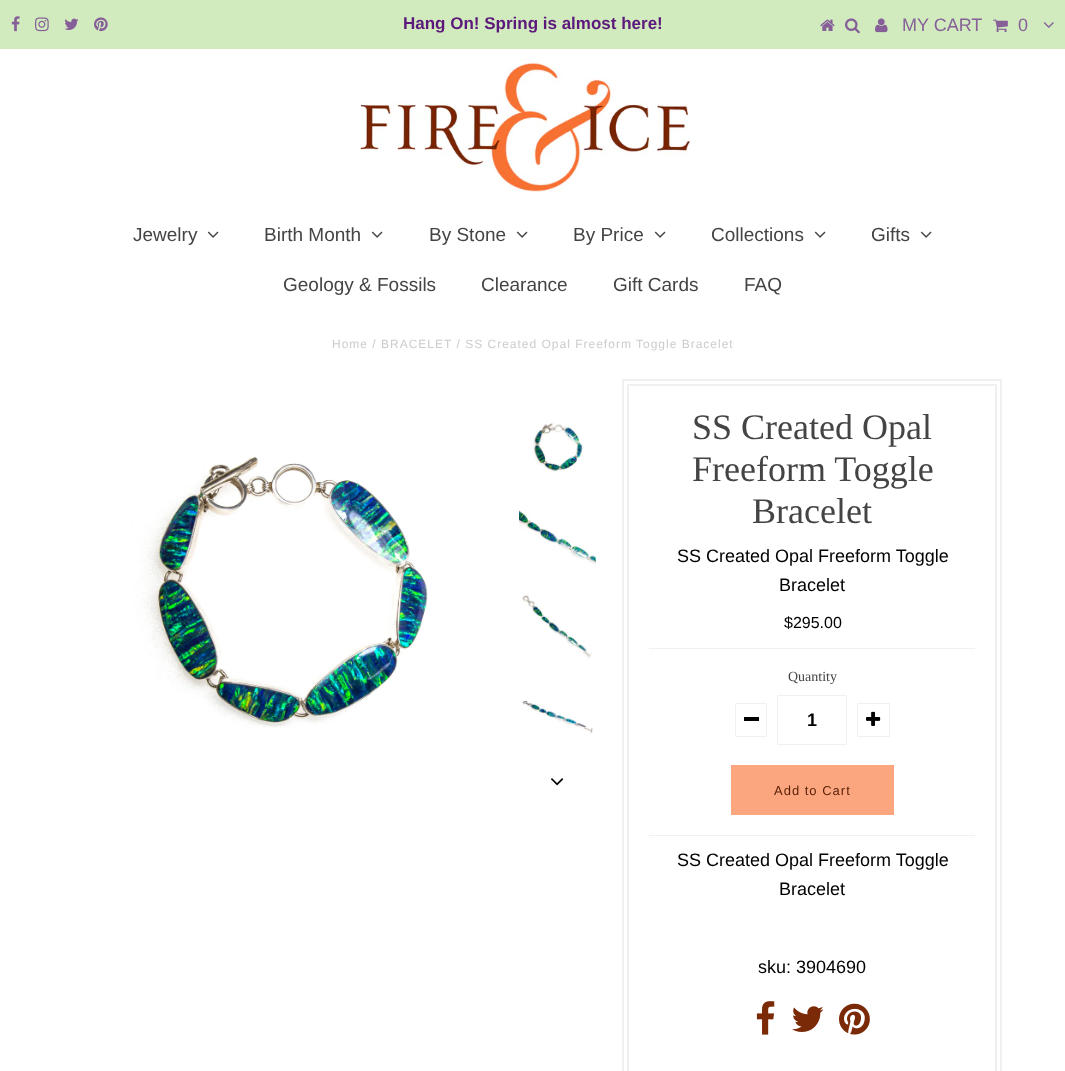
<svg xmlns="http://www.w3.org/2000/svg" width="1065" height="1071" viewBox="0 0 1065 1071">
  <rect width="100%" height="100%" fill="#fff"/>
  <path d="M0 0h1065v49H0z" fill="#d1ebbf"/>
  <image x="11" y="16" width="9" height="16" href="img/1.png"/>
  <image x="35" y="17" width="14" height="15" href="img/2.png"/>
  <image x="64" y="18" width="15" height="12" href="img/3.png"/>
  <image x="94" y="17" width="14" height="15" href="img/4.png"/>
  <image x="820" y="19" width="15" height="12" href="img/5.png"/>
  <image x="845" y="18" width="15" height="16" href="img/6.png"/>
  <image x="875" y="18" width="13" height="15" href="img/7.png"/>
  <image x="993" y="19" width="15" height="14" href="img/8.png"/>
  <image x="1043" y="22" width="11" height="6" href="img/9.png"/>
  <image x="358" y="59" width="333" height="133" href="img/10.png"/>
  <image x="207" y="231" width="12" height="7" href="img/11.png"/>
  <image x="371" y="231" width="12" height="7" href="img/11.png"/>
  <image x="516" y="231" width="12" height="7" href="img/11.png"/>
  <image x="654" y="231" width="12" height="7" href="img/11.png"/>
  <image x="814" y="231" width="12" height="7" href="img/11.png"/>
  <image x="920" y="231" width="12" height="7" href="img/11.png"/>
  <image x="132" y="455" width="296" height="273" href="img/12.png"/>
  <image x="533" y="423" width="50" height="49" href="img/13.png"/>
  <image x="519" y="510" width="77" height="55" href="img/14.png"/>
  <image x="522" y="595" width="70" height="65" href="img/15.png"/>
  <image x="522" y="700" width="72" height="34" href="img/16.png"/>
  <image x="551" y="778" width="13" height="8" href="img/17.png"/>
  <path d="M623 380h378v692H623z" fill="none" stroke="#f0f0f0" stroke-width="2"/>
  <path d="M628 385h368v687H628z" fill="none" stroke="#f0f0f0" stroke-width="2"/>
  <path d="M649 648h326v1H649z" fill="#f0f0f0"/>
  <path d="M649 835h326v1H649z" fill="#f0f0f0"/>
  <path d="M735.5 703.5h31v33H735.5z" fill="none" stroke="#f0f0f0"/>
  <path d="M744 717h15v4H744z" fill="#000"/>
  <path d="M777.5 695.5h69v49H777.5z" fill="none" stroke="#f0f0f0"/>
  <path d="M857.5 703.5h32v33H857.5z" fill="none" stroke="#f0f0f0"/>
  <image x="866" y="711" width="15" height="15" href="img/18.png"/>
  <path d="M731 765h163v50H731z" fill="#fba67e"/>
  <image x="756" y="1001" width="19" height="34" href="img/19.png"/>
  <image x="792" y="1006" width="32" height="26" href="img/20.png"/>
  <image x="839" y="1003" width="31" height="32" href="img/21.png"/>
  <text x="403" y="29" font-family="Liberation Sans" font-size="17" font-weight="bold" fill="#5c197b">Hang On! Spring is almost here!</text>
  <g font-family="Liberation Sans" font-size="18" fill="#865f98">
    <text x="902" y="31">MY CART</text>
    <text x="1018" y="31">0</text>
  </g>
  <g font-family="Liberation Sans" font-size="19" fill="#444">
    <text x="133" y="241">Jewelry</text>
    <text x="264" y="241">Birth Month</text>
    <text x="429" y="241">By Stone</text>
    <text x="573" y="241">By Price</text>
    <text x="711" y="241">Collections</text>
    <text x="871" y="241">Gifts</text>
    <text x="283" y="291">Geology &amp; Fossils</text>
    <text x="481" y="291">Clearance</text>
    <text x="613" y="291">Gift Cards</text>
    <text x="744" y="291">FAQ</text>
  </g>
  <text x="332" y="348" font-family="Liberation Sans" font-size="12" letter-spacing="1" fill="#ccc">Home / BRACELET / SS Created Opal Freeform Toggle Bracelet</text>
  <g font-family="Liberation Serif" font-size="36" fill="#444">
    <text x="692" y="439">SS Created Opal</text>
    <text x="692" y="481">Freeform Toggle</text>
    <text x="752" y="523">Bracelet</text>
  </g>
  <g font-family="Liberation Sans" font-size="18" fill="#000">
    <text x="677" y="562">SS Created Opal Freeform Toggle</text>
    <text x="779" y="591">Bracelet</text>
  </g>
  <text x="784" y="628" font-family="Liberation Sans" font-size="16" fill="#000">$295.00</text>
  <text x="788" y="681" font-family="Liberation Serif" font-size="14" fill="#444">Quantity</text>
  <text x="807" y="726" font-family="Liberation Sans" font-size="18" font-weight="bold" fill="#000">1</text>
  <text x="774" y="795" font-family="Liberation Sans" font-size="13" letter-spacing="1" fill="#571f07">Add to Cart</text>
  <g font-family="Liberation Sans" font-size="18" fill="#000">
    <text x="677" y="866">SS Created Opal Freeform Toggle</text>
    <text x="779" y="895">Bracelet</text>
    <text x="758" y="973">sku: 3904690</text>
  </g>
</svg>
